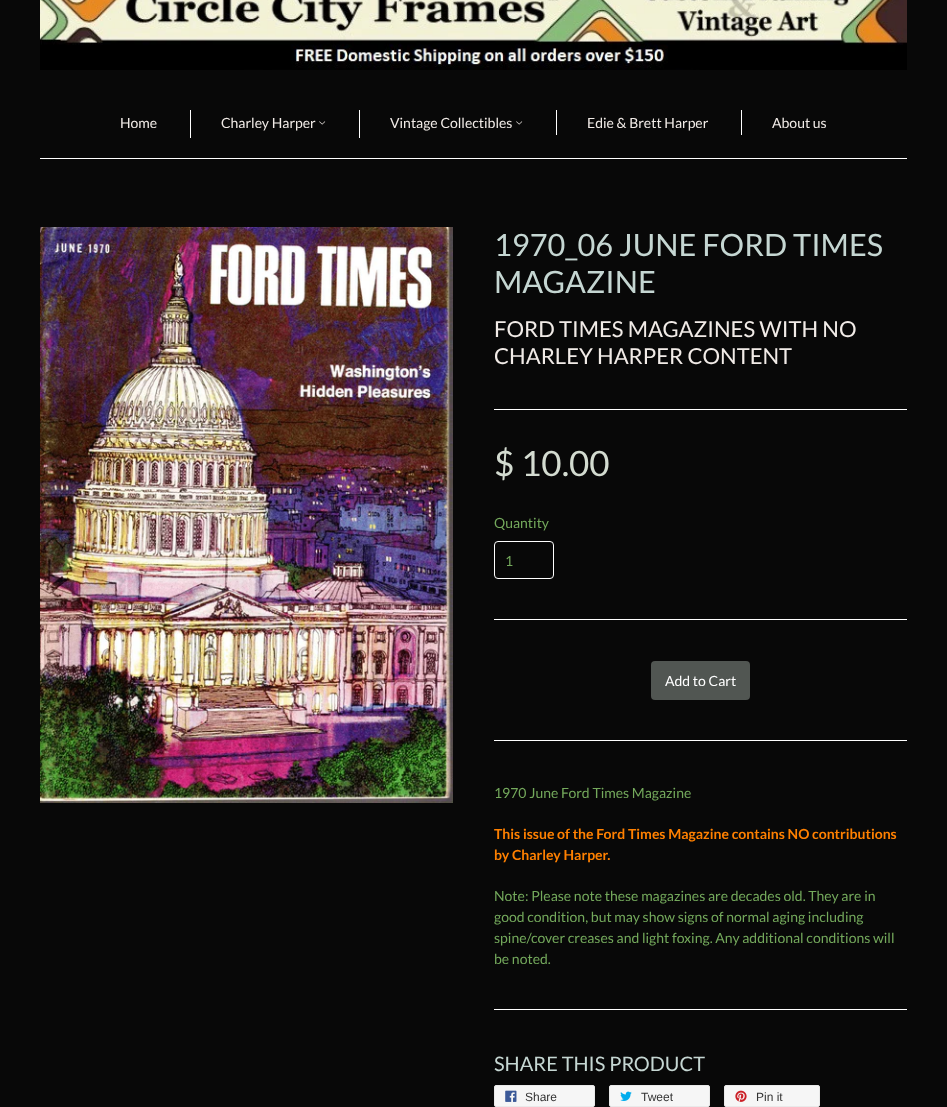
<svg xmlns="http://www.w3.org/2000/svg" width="947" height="1107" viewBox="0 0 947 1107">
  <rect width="100%" height="100%" fill="#080808"/>
  <path d="M40 158h867v1H40z" fill="#fff"/>
  <image x="40" y="0" width="867" height="70" href="img/1.png"/>
  <path d="M190 110h1v28H190z" fill="#fff"/>
  <image x="319" y="121" width="7" height="4" href="img/2.png"/>
  <path d="M359 110h1v28H359z" fill="#fff"/>
  <image x="516" y="121" width="7" height="4" href="img/2.png"/>
  <path d="M556 110h1v25H556z" fill="#fff"/>
  <path d="M741 110h1v25H741z" fill="#fff"/>
  <image x="40" y="227" width="413" height="576" href="img/3.png"/>
  <path d="M494 409h413v1H494z" fill="#fff"/>
  <rect x="494.5" y="541.5" width="59" height="37" rx="3.5" fill="none" stroke="#fff"/>
  <path d="M494 619h413v1H494z" fill="#fff"/>
  <rect x="651" y="661" width="99" height="39" rx="4" fill="#515652"/>
  <path d="M494 740h413v1H494z" fill="#fff"/>
  <path d="M494 1009h413v1H494z" fill="#fff"/>
  <rect x="494.5" y="1085.5" width="100" height="21" rx="1.5" fill="#f6f6f6" stroke="#e9e9e9"/>
  <image x="505" y="1090" width="12" height="12" href="img/4.png"/>
  <rect x="609.5" y="1085.5" width="100" height="21" rx="1.5" fill="#f6f6f6" stroke="#e9e9e9"/>
  <image x="620" y="1091" width="12" height="10" href="img/5.png"/>
  <rect x="724.5" y="1085.5" width="95" height="21" rx="1.5" fill="#f6f6f6" stroke="#e9e9e9"/>
  <image x="735" y="1090" width="12" height="12" href="img/6.png"/>
  <g font-family="Lato" font-size="14" fill="#f1ebe7">
    <text x="120" y="128">Home</text>
    <text x="221" y="128">Charley Harper</text>
    <text x="390" y="128">Vintage Collectibles</text>
    <text x="587" y="128">Edie &amp; Brett Harper</text>
    <text x="772" y="128">About us</text>
  </g>
  <g font-family="Lato" font-size="30.75" fill="#c5d6d2">
    <text x="494" y="256">1970_06 JUNE FORD TIMES</text>
    <text x="494" y="293">MAGAZINE</text>
  </g>
  <g font-family="Lato" font-size="22" fill="#f1ebe7">
    <text x="494" y="337">FORD TIMES MAGAZINES WITH NO</text>
    <text x="494" y="364">CHARLEY HARPER CONTENT</text>
  </g>
  <text x="494" y="476" font-family="Lato" font-size="35" fill="#d3dbd0">$ 10.00</text>
  <g font-family="Lato" font-size="14" fill="#74a95c">
    <text x="494" y="528">Quantity</text>
    <text x="505" y="566">1</text>
  </g>
  <text x="665" y="686" font-family="Lato" font-size="14" fill="#fff">Add to Cart</text>
  <text x="494" y="798" font-family="Lato" font-size="14" fill="#74a95c">1970 June Ford Times Magazine</text>
  <g font-family="Lato" font-size="14" font-weight="bold" fill="#ff8000">
    <text x="494" y="839">This issue of the Ford Times Magazine contains NO contributions</text>
    <text x="494" y="860">by Charley Harper.</text>
  </g>
  <g font-family="Lato" font-size="14" fill="#74a95c">
    <text x="494" y="901">Note: Please note these magazines are decades old. They are in</text>
    <text x="494" y="922">good condition, but may show signs of normal aging including</text>
    <text x="494" y="943">spine/cover creases and light foxing. Any additional conditions will</text>
    <text x="494" y="964">be noted.</text>
  </g>
  <text x="494" y="1071" font-family="Lato" font-size="20" fill="#c5d6d2">SHARE THIS PRODUCT</text>
  <g font-family="Liberation Sans" font-size="12" fill="#333">
    <text x="525" y="1101">Share</text>
    <text x="641" y="1101">Tweet</text>
    <text x="756" y="1101">Pin it</text>
  </g>
</svg>
